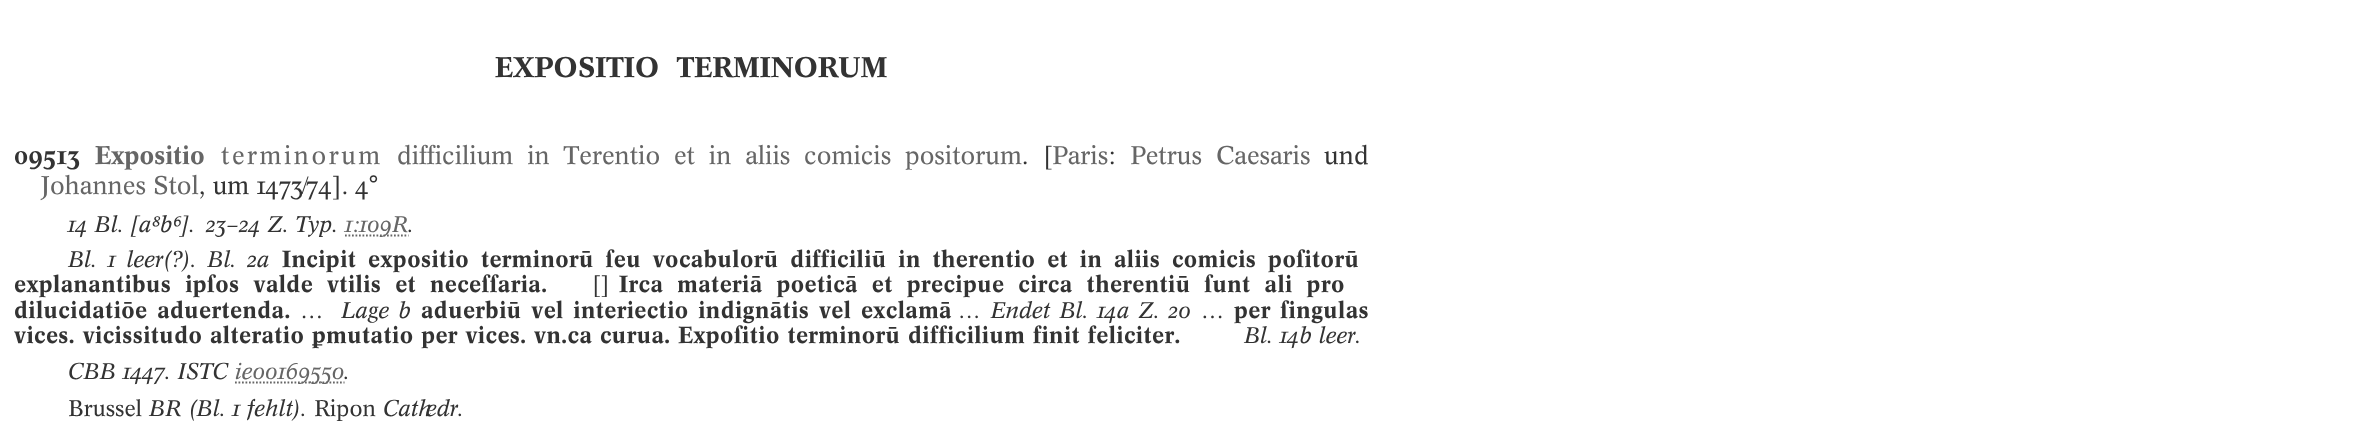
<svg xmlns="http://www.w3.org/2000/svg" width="2370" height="443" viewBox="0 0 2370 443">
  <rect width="100%" height="100%" fill="#fff"/>
  <path d="M345 235.5H408.5" fill="none" stroke="#666" stroke-width="1.8" stroke-dasharray="1.75 1.75"/>
  <path d="M235 382.5H344.5" fill="none" stroke="#666" stroke-width="1.8" stroke-dasharray="1.75 1.75"/>
  <text x="495" y="77" font-family="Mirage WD" font-size="28" font-weight="bold" fill="#333" xml:space="preserve">EXPOSITIO  TERMINORUM</text>
  <text x="14" y="164" font-family="Mirage WD" font-size="25.2" font-weight="bold" fill="#333">09513</text>
  <text x="95" y="164" font-family="Mirage WD" font-size="25.2" font-weight="bold" fill="#666">Expositio</text>
  <text x="221" y="164" font-family="Mirage WD" font-size="25.2" letter-spacing="2.5" fill="#666">terminorum</text>
  <text x="397" y="164" word-spacing="6.5" font-family="Mirage WD" font-size="25.2" fill="#666">difficilium in Terentio et in aliis comicis positorum</text>
  <g font-family="Mirage WD" font-size="25.2" fill="#333">
    <text x="1022" y="164">.</text>
    <text x="1043" y="164">[</text>
  </g>
  <text x="1052" y="164" font-family="Mirage WD" font-size="25.2" fill="#666">Paris</text>
  <text x="1108" y="164" font-family="Mirage WD" font-size="25.2" fill="#333">:</text>
  <g font-family="Mirage WD" font-size="25.2" fill="#666">
    <text x="1130" y="164">Petrus</text>
    <text x="1216" y="164">Caesaris</text>
  </g>
  <text x="1324" y="164" font-family="Mirage WD" font-size="25.2" fill="#333">und</text>
  <text x="41" y="194" font-family="Mirage WD" font-size="25.2" fill="#666">Johannes Stol</text>
  <text x="199" y="194" font-family="Mirage WD" font-size="25.2" fill="#333">, um 1473/74]. 4°</text>
  <g font-family="Mirage WD" font-size="22.4" font-style="italic" fill="#333">
    <text x="68" y="232">14 Bl. [a⁸b⁶].</text>
    <text x="206" y="232">23–24 Z. Typ.</text>
  </g>
  <text x="345" y="232" font-family="Mirage WD" font-size="22.4" font-style="italic" fill="#666">1:109R</text>
  <g font-family="Mirage WD" font-size="22.4" font-style="italic" fill="#333">
    <text x="408" y="232">.</text>
    <text x="68" y="267" word-spacing="4">Bl. 1 leer(?). Bl. 2a</text>
  </g>
  <g font-family="Mirage WD" font-size="22.95" font-weight="bold" letter-spacing="0.46" fill="#333">
    <text x="282" y="267" word-spacing="4.1">Incipit expositio terminorū ſeu vocabulorū difficiliū in therentio et in aliis comicis poſitorū</text>
    <text x="14" y="292" word-spacing="6.25">explanantibus ipſos valde vtilis et neceſſaria. </text>
  </g>
  <text x="592" y="292" font-family="Mirage WD" font-size="22.95" letter-spacing="0.46" fill="#333">[]</text>
  <g font-family="Mirage WD" font-size="22.95" font-weight="bold" letter-spacing="0.46" fill="#333">
    <text x="619" y="292" word-spacing="6.25">Irca materiā poeticā et precipue circa therentiū ſunt ali pro</text>
    <text x="14" y="318" word-spacing="2">dilucidatiōe aduertenda. …</text>
  </g>
  <text x="341" y="318" word-spacing="2" font-family="Mirage WD" font-size="22.4" font-style="italic" fill="#333">Lage b</text>
  <text x="421" y="318" word-spacing="2" font-family="Mirage WD" font-size="22.95" font-weight="bold" letter-spacing="0.46" fill="#333">aduerbiū vel interiectio indignātis vel exclamā</text>
  <text x="959" y="318" word-spacing="2" font-family="Mirage WD" font-size="22.4" font-style="italic" fill="#333">… Endet Bl. 14a Z. 20</text>
  <g font-family="Mirage WD" font-size="22.95" font-weight="bold" letter-spacing="0.46" fill="#333">
    <text x="1201" y="318" word-spacing="2">… per ſingulas</text>
    <text x="14" y="343">vices. vicissitudo alteratio ꝑmutatio per vices. vn.ca curua.  Expoſitio terminorū difficilium finit feliciter. </text>
  </g>
  <g font-family="Mirage WD" font-size="22.4" font-style="italic" fill="#333">
    <text x="1244" y="343">Bl. 14b leer.</text>
    <text x="68" y="379">CBB 1447. ISTC</text>
  </g>
  <text x="235" y="379" font-family="Mirage WD" font-size="22.4" font-style="italic" fill="#666">ie00169550</text>
  <text x="344" y="379" font-family="Mirage WD" font-size="22.4" font-style="italic" fill="#333">.</text>
  <text x="68" y="416" font-family="Mirage WD" font-size="22.4" fill="#333">Brussel</text>
  <text x="149" y="416" font-family="Mirage WD" font-size="22.4" font-style="italic" fill="#333">BR (Bl. 1 fehlt).</text>
  <text x="314" y="416" font-family="Mirage WD" font-size="22.4" fill="#333">Ripon</text>
  <text x="383" y="416" font-family="Mirage WD" font-size="22.4" font-style="italic" fill="#333">Cathedr.</text>
</svg>
